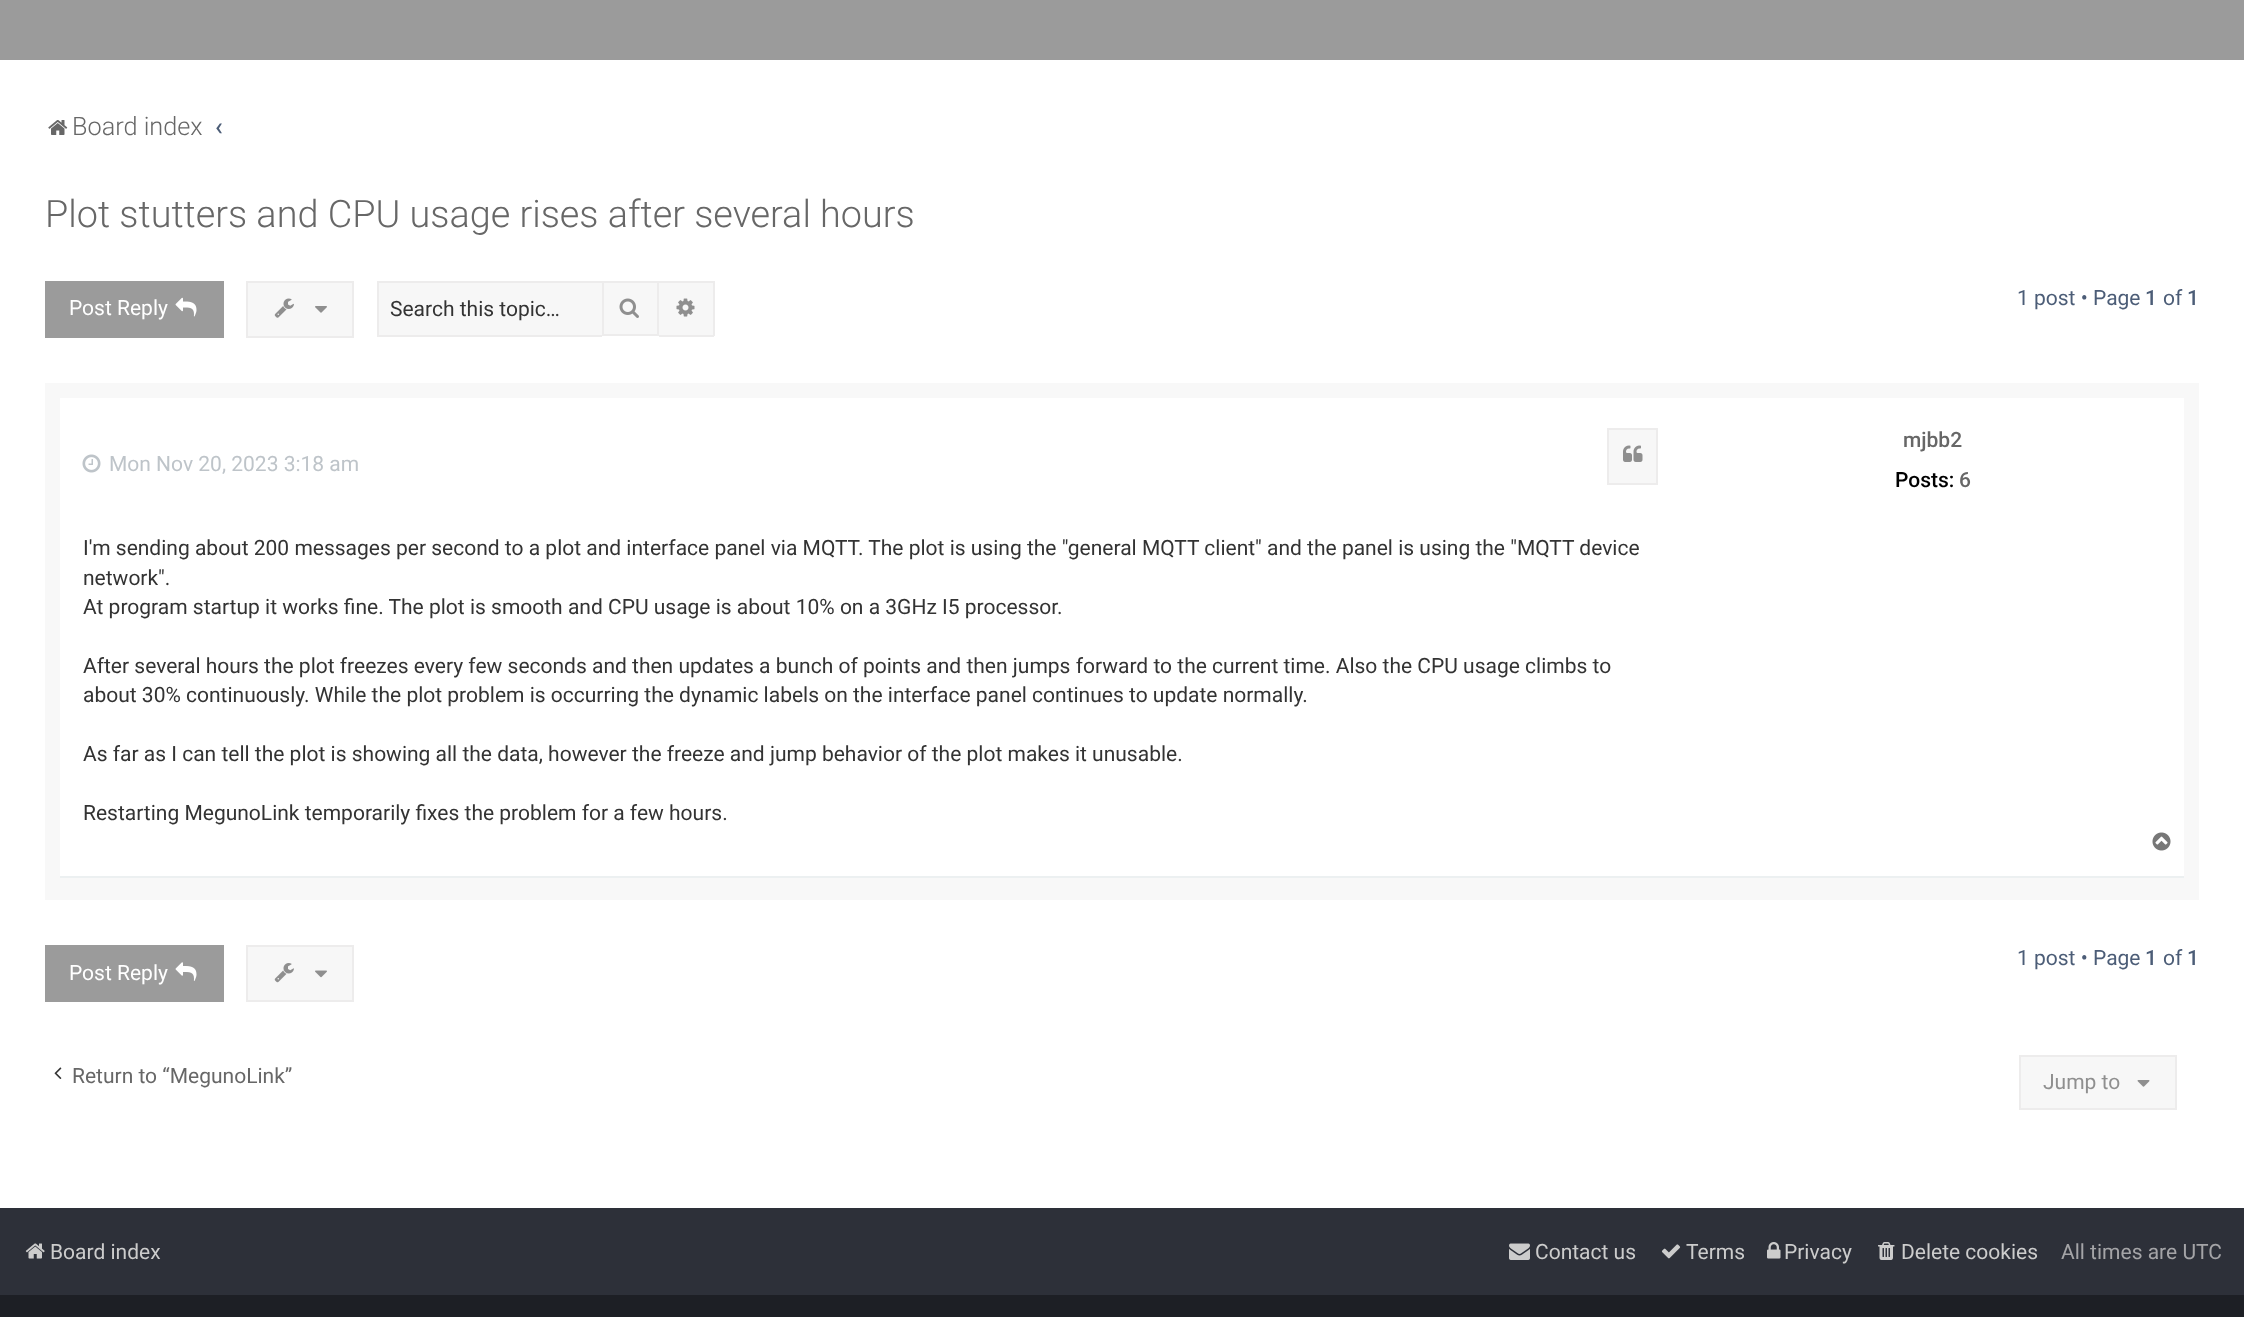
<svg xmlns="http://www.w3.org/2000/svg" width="2244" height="1317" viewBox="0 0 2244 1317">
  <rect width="100%" height="100%" fill="#2d3039"/>
  <path d="M0 0h2244v60H0z" fill="#9b9b9b"/>
  <path d="M0 60h2244v1148H0z" fill="#fff"/>
  <image x="48" y="120" width="20" height="15" href="img/1.png"/>
  <path d="M45 281h179v57H45z" fill="#9b9b9b"/>
  <image x="175" y="297" width="22" height="20" href="img/2.png"/>
  <path d="M247 282h106v55H247z" fill="#f7f7f7" stroke="#edecec" stroke-width="2"/>
  <image x="274" y="298" width="20" height="20" href="img/3.png"/>
  <image x="315" y="306" width="12" height="7" href="img/4.png"/>
  <path d="M379 283h223v52H379z" fill="#f7f7f7"/>
  <path d="M377 281h225v2H377z" fill="#edecec"/>
  <path d="M377 335h225v2H377z" fill="#edecec"/>
  <path d="M377 281h2v55H377z" fill="#edecec"/>
  <path d="M603 282h55v53H603z" fill="#f7f7f7" stroke="#edecec" stroke-width="2"/>
  <image x="619" y="298" width="20" height="20" href="img/5.png"/>
  <path d="M659 283h54v52H659z" fill="#f7f7f7"/>
  <path d="M659 281h55v2H659z" fill="#edecec"/>
  <path d="M713 281h2v55H713z" fill="#edecec"/>
  <path d="M659 335h55v2H659z" fill="#edecec"/>
  <image x="676" y="298" width="19" height="19" href="img/6.png"/>
  <path d="M45 383h2154v517H45z" fill="#f8f8f8"/>
  <path d="M60 398h2124v478H60z" fill="#fff"/>
  <path d="M60 876h2124v2H60z" fill="#ecf0f1"/>
  <image x="82" y="454" width="19" height="19" href="img/7.png"/>
  <path d="M1608 429h49v55H1608z" fill="#f7f7f7" stroke="#edecec" stroke-width="2"/>
  <image x="1623" y="445" width="20" height="17" href="img/8.png"/>
  <image x="2152" y="832" width="19" height="19" href="img/9.png"/>
  <path d="M247 946h106v55H247z" fill="#f7f7f7" stroke="#edecec" stroke-width="2"/>
  <image x="274" y="963" width="20" height="20" href="img/10.png"/>
  <image x="315" y="970" width="12" height="8" href="img/11.png"/>
  <path d="M45 945h179v57H45z" fill="#9b9b9b"/>
  <image x="175" y="962" width="22" height="19" href="img/12.png"/>
  <image x="54" y="1067" width="8" height="12" href="img/13.png"/>
  <path d="M2020 1056h156v53H2020z" fill="#f7f7f7" stroke="#edecec" stroke-width="2"/>
  <image x="2137" y="1080" width="13" height="7" href="img/14.png"/>
  <image x="25" y="1243" width="20" height="16" href="img/15.png"/>
  <image x="1509" y="1243" width="21" height="17" href="img/16.png"/>
  <image x="1661" y="1244" width="20" height="15" href="img/17.png"/>
  <image x="1767" y="1242" width="14" height="17" href="img/18.png"/>
  <image x="1878" y="1242" width="17" height="18" href="img/19.png"/>
  <path d="M0 1295h2244v22H0z" fill="#1d1f25"/>
  <text x="72" y="135" font-family="Roboto" font-size="25.25" font-weight="300" fill="#676767">Board index</text>
  <text x="215" y="135" font-family="Roboto" font-size="25.25" font-weight="500" fill="#4c5d77">‹</text>
  <text x="45" y="227" font-family="Roboto" font-size="37.8" font-weight="300" fill="#676767">Plot stutters and CPU usage rises after several hours</text>
  <text x="69" y="315" font-family="Roboto" font-size="21" fill="#fff">Post Reply</text>
  <text x="390" y="316" font-family="Roboto" font-size="21" fill="#333">Search this topic…</text>
  <text x="2017" y="305" font-family="Roboto" font-size="21" fill="#4c5d77">1 post • Page</text>
  <text x="2145" y="305" font-family="Roboto" font-size="21" font-weight="500" fill="#4c5d77">1</text>
  <text x="2163" y="305" font-family="Roboto" font-size="21" fill="#4c5d77">of</text>
  <text x="2187" y="305" font-family="Roboto" font-size="21" font-weight="500" fill="#4c5d77">1</text>
  <text x="109" y="471" font-family="Roboto" font-size="21" fill="#bec4c9">Mon Nov 20, 2023 3:18 am</text>
  <g font-family="Roboto" font-size="21" fill="#333">
    <text x="83" y="555">I'm sending about 200 messages per second to a plot and interface panel via MQTT. The plot is using the "general MQTT client" and the panel is using the "MQTT device</text>
    <text x="83" y="585">network".</text>
    <text x="83" y="614">At program startup it works fine. The plot is smooth and CPU usage is about 10% on a 3GHz I5 processor.</text>
    <text x="83" y="673">After several hours the plot freezes every few seconds and then updates a bunch of points and then jumps forward to the current time. Also the CPU usage climbs to</text>
    <text x="83" y="702">about 30% continuously. While the plot problem is occurring the dynamic labels on the interface panel continues to update normally.</text>
    <text x="83" y="761">As far as I can tell the plot is showing all the data, however the freeze and jump behavior of the plot makes it unusable.</text>
    <text x="83" y="820">Restarting MegunoLink temporarily fixes the problem for a few hours.</text>
  </g>
  <text x="1903" y="447" font-family="Roboto" font-size="21" font-weight="500" fill="#676767">mjbb2</text>
  <text x="1895" y="487" font-family="Roboto" font-size="21" font-weight="500" fill="#000">Posts:</text>
  <text x="1959" y="487" font-family="Roboto" font-size="21" font-weight="500" fill="#676767">6</text>
  <text x="2017" y="965" font-family="Roboto" font-size="21" fill="#4c5d77">1 post • Page</text>
  <text x="2145" y="965" font-family="Roboto" font-size="21" font-weight="500" fill="#4c5d77">1</text>
  <text x="2163" y="965" font-family="Roboto" font-size="21" fill="#4c5d77">of</text>
  <text x="2187" y="965" font-family="Roboto" font-size="21" font-weight="500" fill="#4c5d77">1</text>
  <text x="69" y="980" font-family="Roboto" font-size="21" fill="#fff">Post Reply</text>
  <text x="72" y="1083" font-family="Roboto" font-size="21" fill="#676767">Return to “MegunoLink”</text>
  <text x="2043" y="1089" font-family="Roboto" font-size="21" fill="#8f8f8f">Jump to</text>
  <g font-family="Roboto" font-size="21" fill="#ccc">
    <text x="50" y="1259">Board index</text>
    <text x="1535" y="1259">Contact us</text>
    <text x="1686" y="1259">Terms</text>
    <text x="1784" y="1259">Privacy</text>
    <text x="1901" y="1259">Delete cookies</text>
  </g>
  <text x="2061" y="1259" font-family="Roboto" font-size="21" fill="#a4a4a7">All times are UTC</text>
</svg>
